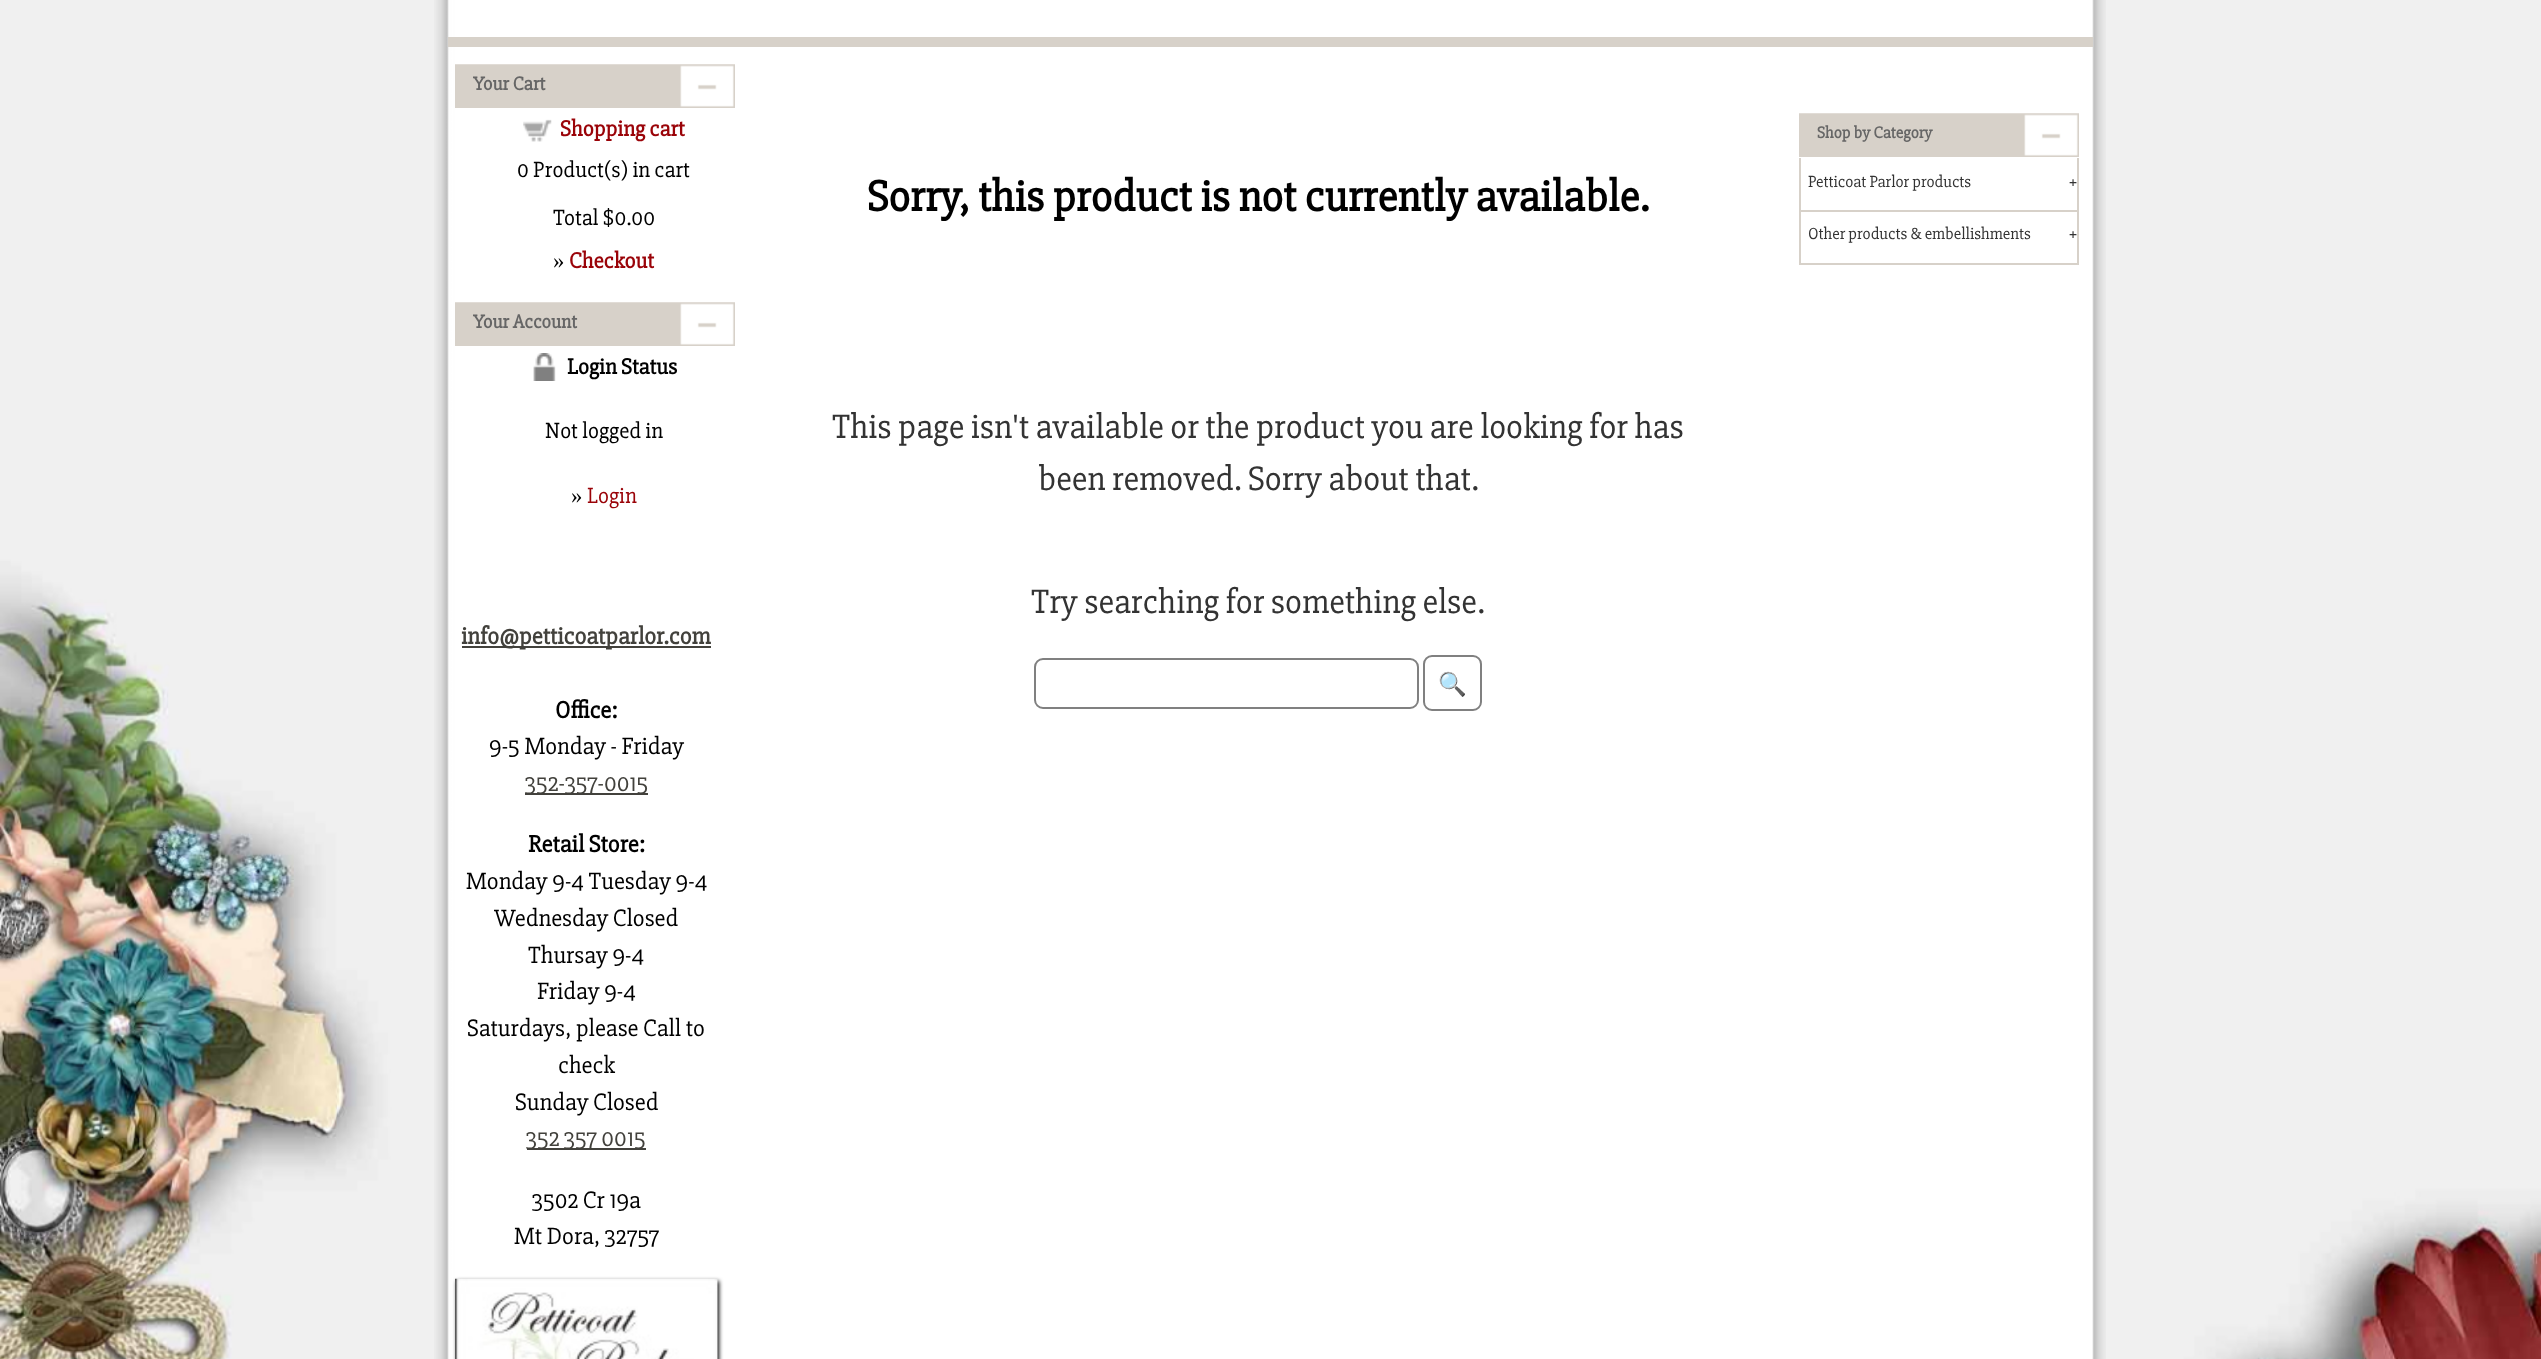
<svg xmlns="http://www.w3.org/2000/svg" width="2541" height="1359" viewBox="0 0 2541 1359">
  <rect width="100%" height="100%" fill="#fff"/>
  <image x="0" y="0" width="2541" height="1359" href="img/1.png"/>
  <image x="434" y="0" width="1672" height="1359" href="img/2.png"/>
  <path d="M448 37h1645v10H448z" fill="#d7d1c9"/>
  <image x="455" y="64" width="280" height="44" href="img/3.png"/>
  <image x="523" y="119" width="29" height="23" href="img/4.png"/>
  <image x="455" y="302" width="280" height="44" href="img/3.png"/>
  <image x="533" y="353" width="23" height="28" href="img/5.png"/>
  <path d="M462 646h249v2H462z" fill="#42413c"/>
  <path d="M525 793h123v2H525z" fill="#42413c"/>
  <path d="M527 1148h119v2H527z" fill="#42413c"/>
  <path d="M457 1281h262v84H457z" fill="#000" filter="blur(2px)"/>
  <image x="455" y="1278" width="263" height="81" href="img/6.png"/>
  <rect x="1035" y="659" width="383" height="49" rx="8" fill="none" stroke="#808080" stroke-width="2"/>
  <rect x="1424" y="656" width="57" height="54" rx="8" fill="none" stroke="#808080" stroke-width="2"/>
  <image x="1799" y="113" width="280" height="44" href="img/3.png"/>
  <path d="M2077 158h2v54H2077z" fill="#d7d1c9"/>
  <path d="M1799 210h280v2H1799z" fill="#d7d1c9"/>
  <path d="M1799 158h2v54H1799z" fill="#d7d1c9"/>
  <path d="M2077 210h2v54H2077z" fill="#d7d1c9"/>
  <path d="M1799 263h280v2H1799z" fill="#d7d1c9"/>
  <path d="M1799 210h2v54H1799z" fill="#d7d1c9"/>
  <text x="473" y="90" font-family="'Slabo 27px'" font-size="19.5" font-weight="bold" fill="#666">Your Cart</text>
  <text x="560" y="136" font-family="'Slabo 27px'" font-size="22.75" font-weight="bold" fill="#9a0308">Shopping cart</text>
  <g font-family="'Slabo 27px'" font-size="22.75" fill="#000">
    <text x="517" y="177">0 Product(s) in cart</text>
    <text x="553" y="225">Total $0.00</text>
  </g>
  <text x="553" y="268" font-family="Liberation Serif" font-size="22.75" fill="#000">»</text>
  <text x="569" y="268" font-family="'Slabo 27px'" font-size="22.75" font-weight="bold" fill="#9a0308">Checkout</text>
  <text x="473" y="328" font-family="'Slabo 27px'" font-size="19.5" font-weight="bold" fill="#666">Your Account</text>
  <text x="567" y="374" font-family="'Slabo 27px'" font-size="22.75" font-weight="bold" fill="#000">Login Status</text>
  <text x="545" y="438" font-family="'Slabo 27px'" font-size="22.75" fill="#000">Not logged in</text>
  <text x="571" y="503" font-family="Liberation Serif" font-size="22.75" fill="#000">»</text>
  <text x="587" y="503" font-family="'Slabo 27px'" font-size="22.75" fill="#9a0308">Login</text>
  <text x="461" y="644" font-family="'Slabo 27px'" font-size="24.5" font-weight="bold" fill="#42413c">info@petticoatparlor.com</text>
  <text x="555" y="718" font-family="'Slabo 27px'" font-size="24.5" font-weight="bold" fill="#000">Office:</text>
  <text x="489" y="754" font-family="'Slabo 27px'" font-size="24.5" fill="#000">9-5 Monday - Friday</text>
  <text x="525" y="791" font-family="'Slabo 27px'" font-size="24.5" fill="#42413c">352-357-0015</text>
  <text x="528" y="852" font-family="'Slabo 27px'" font-size="24.5" font-weight="bold" fill="#000">Retail Store:</text>
  <g font-family="'Slabo 27px'" font-size="24.5" fill="#000">
    <text x="466" y="889">Monday 9-4 Tuesday 9-4</text>
    <text x="494" y="926">Wednesday Closed</text>
    <text x="528" y="963">Thursay 9-4</text>
    <text x="537" y="999">Friday 9-4</text>
    <text x="467" y="1036">Saturdays, please Call to</text>
    <text x="558" y="1073">check</text>
    <text x="515" y="1110">Sunday Closed</text>
  </g>
  <text x="526" y="1146" font-family="'Slabo 27px'" font-size="24.5" fill="#42413c">352 357 0015</text>
  <g font-family="'Slabo 27px'" font-size="24.5" fill="#000">
    <text x="532" y="1208">3502 Cr 19a</text>
    <text x="514" y="1244">Mt Dora, 32757</text>
  </g>
  <text x="867" y="211" font-family="'Slabo 27px'" font-size="44.75" font-weight="bold" fill="#000">Sorry, this product is not currently available.</text>
  <g font-family="'Slabo 27px'" font-size="35" fill="#333">
    <text x="832" y="438">This page isn't available or the product you are looking for has</text>
    <text x="1038" y="490">been removed. Sorry about that.</text>
    <text x="1031" y="613">Try searching for something else.</text>
  </g>
  <text x="1438" y="692" font-family="Noto Color Emoji" font-size="23" fill="#000">🔍</text>
  <text x="1817" y="138" font-family="'Slabo 27px'" font-size="16.75" font-weight="bold" fill="#666">Shop by Category</text>
  <g font-family="'Slabo 27px'" font-size="16.75" fill="#333">
    <text x="1808" y="187">Petticoat Parlor products</text>
    <text x="2069" y="187">+</text>
    <text x="1808" y="239">Other products &amp; embellishments</text>
    <text x="2069" y="239">+</text>
  </g>
</svg>
